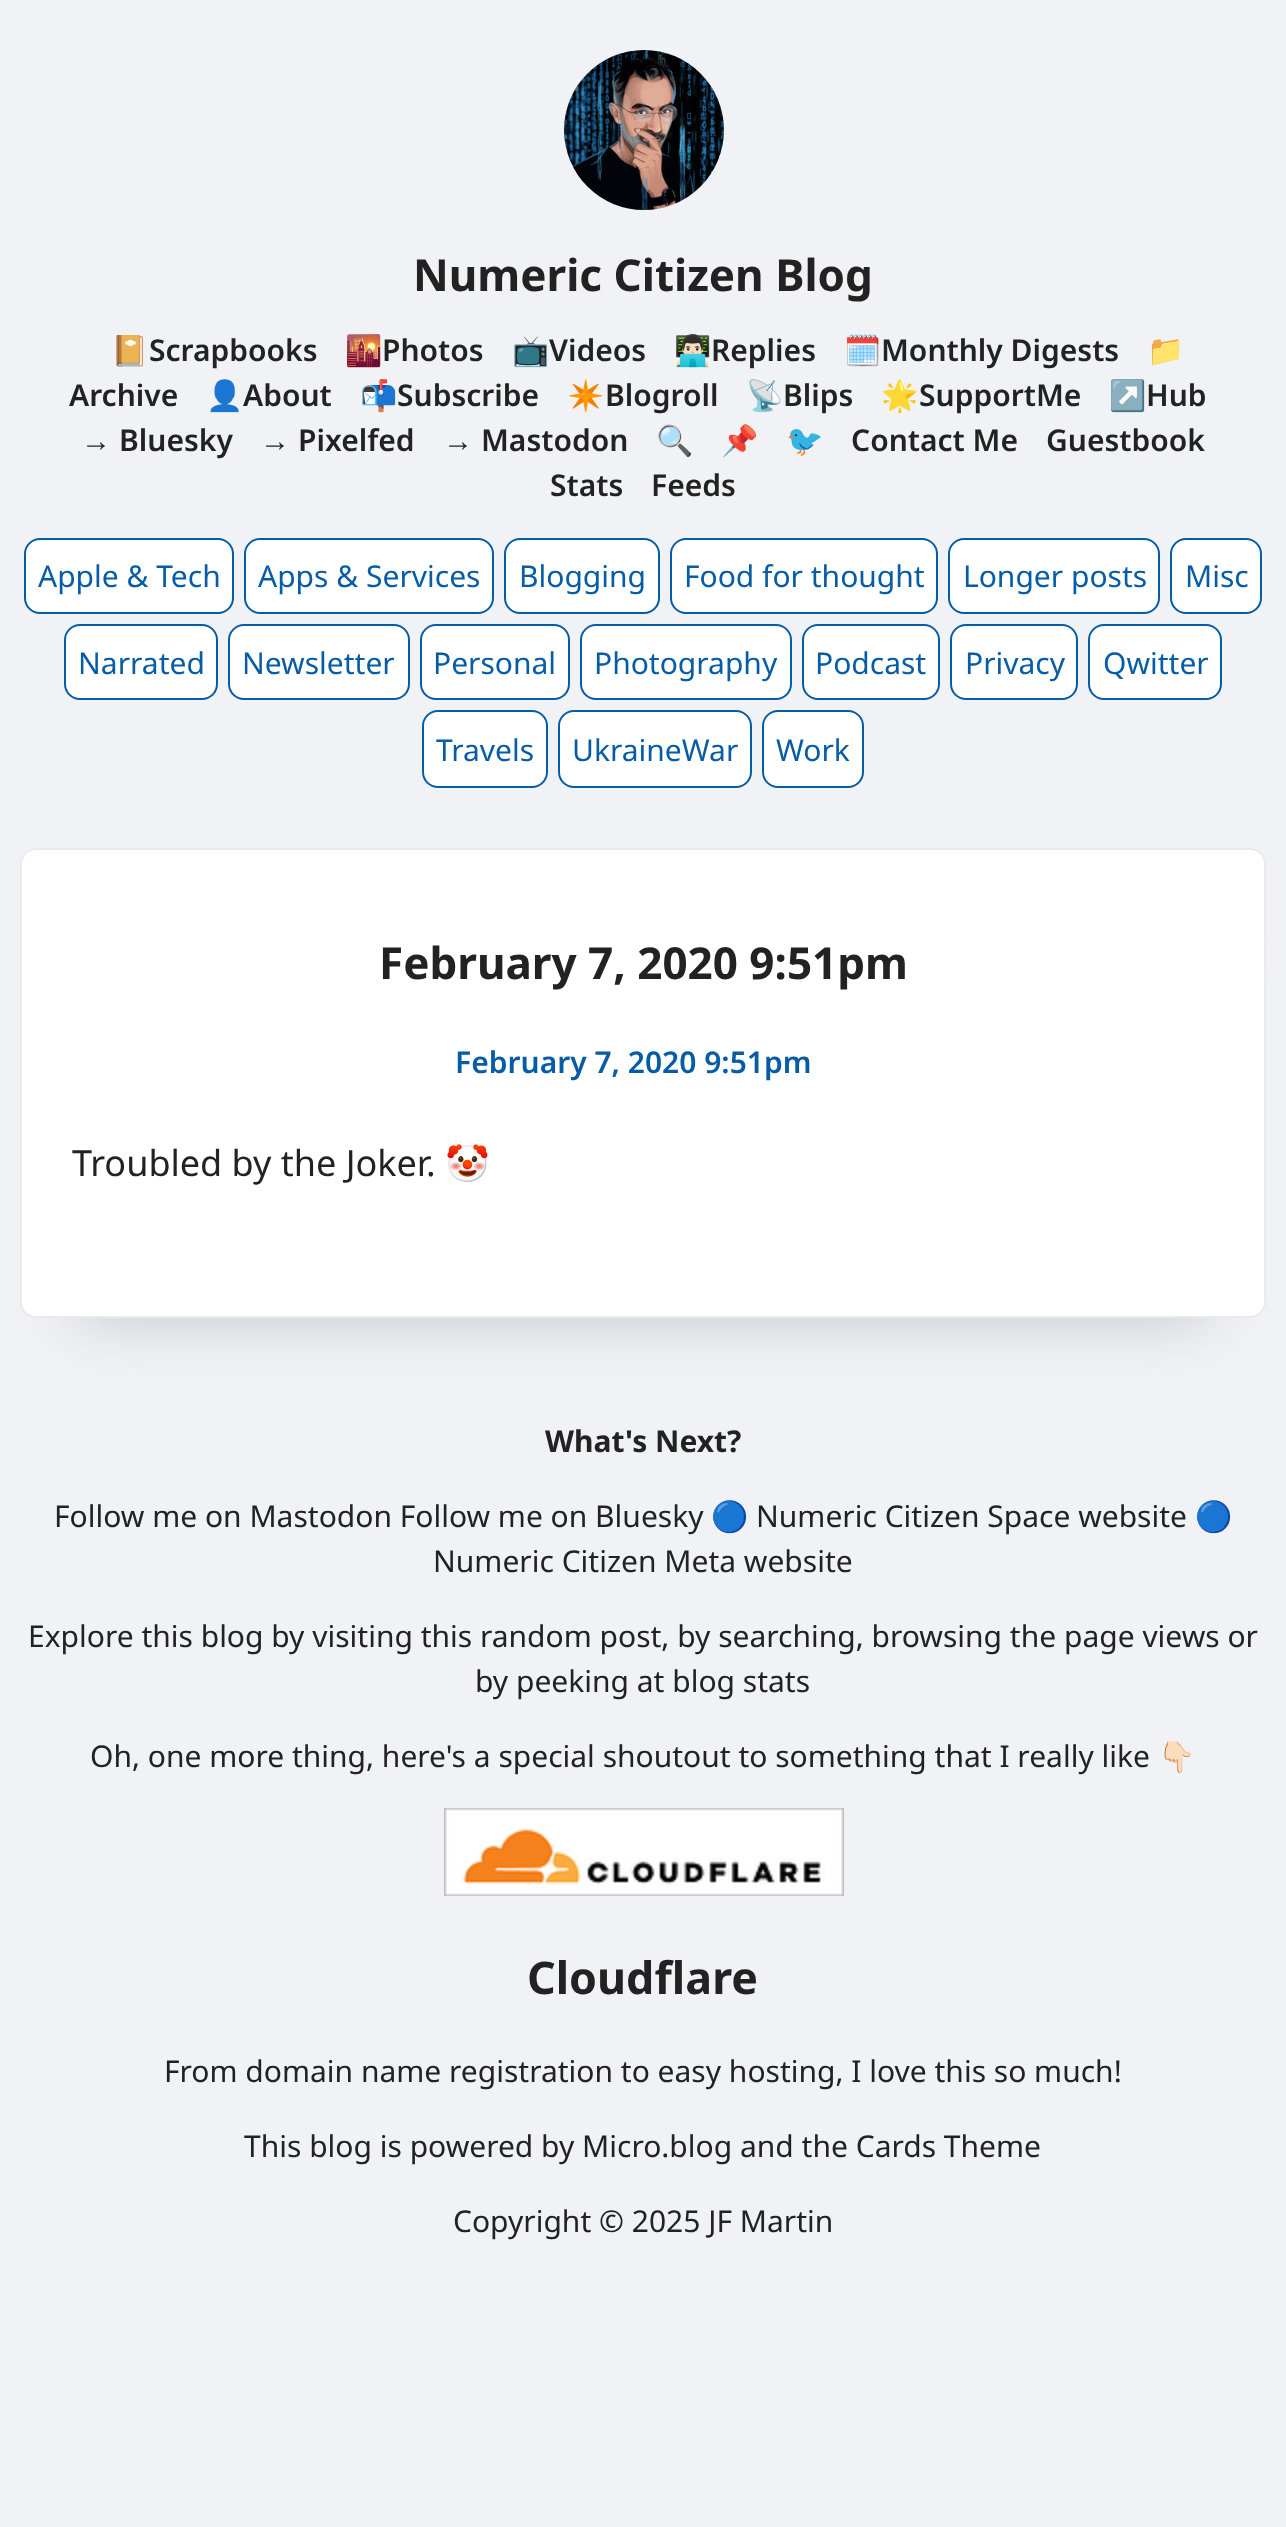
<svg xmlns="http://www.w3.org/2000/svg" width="1286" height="2527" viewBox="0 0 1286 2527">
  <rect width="100%" height="100%" fill="#f0f2f5"/>
  <image x="564" y="50" width="160" height="160" href="img/1.png"/>
  <rect x="25" y="539" width="208" height="74" rx="15" fill="#fff" stroke="#065ca5" stroke-width="2"/>
  <rect x="245" y="539" width="248" height="74" rx="15" fill="#fff" stroke="#065ca5" stroke-width="2"/>
  <rect x="505" y="539" width="154" height="74" rx="15" fill="#fff" stroke="#065ca5" stroke-width="2"/>
  <rect x="671" y="539" width="266" height="74" rx="15" fill="#fff" stroke="#065ca5" stroke-width="2"/>
  <rect x="949" y="539" width="210" height="74" rx="15" fill="#fff" stroke="#065ca5" stroke-width="2"/>
  <rect x="1171" y="539" width="90" height="74" rx="15" fill="#fff" stroke="#065ca5" stroke-width="2"/>
  <rect x="65" y="625" width="152" height="74" rx="15" fill="#fff" stroke="#065ca5" stroke-width="2"/>
  <rect x="229" y="625" width="180" height="74" rx="15" fill="#fff" stroke="#065ca5" stroke-width="2"/>
  <rect x="421" y="625" width="148" height="74" rx="15" fill="#fff" stroke="#065ca5" stroke-width="2"/>
  <rect x="581" y="625" width="210" height="74" rx="15" fill="#fff" stroke="#065ca5" stroke-width="2"/>
  <rect x="803" y="625" width="136" height="74" rx="15" fill="#fff" stroke="#065ca5" stroke-width="2"/>
  <rect x="951" y="625" width="126" height="74" rx="15" fill="#fff" stroke="#065ca5" stroke-width="2"/>
  <rect x="1089" y="625" width="132" height="74" rx="15" fill="#fff" stroke="#065ca5" stroke-width="2"/>
  <rect x="423" y="711" width="124" height="76" rx="15" fill="#fff" stroke="#065ca5" stroke-width="2"/>
  <rect x="559" y="711" width="192" height="76" rx="15" fill="#fff" stroke="#065ca5" stroke-width="2"/>
  <rect x="763" y="711" width="100" height="76" rx="15" fill="#fff" stroke="#065ca5" stroke-width="2"/>
  <path d="M80 968h1126v350H80z" fill="#c2c6cb" filter="blur(30px)"/>
  <rect x="21" y="849" width="1244" height="468" rx="15" fill="#fff" stroke="#eaeaec" stroke-width="2"/>
  <image x="444" y="1808" width="400" height="88" href="img/2.png"/>
  <text x="413" y="291" font-family="Noto Sans" font-size="44" font-weight="bold" fill="#222">Numeric Citizen Blog</text>
  <text x="111" y="361" font-family="Noto Color Emoji" font-size="30" fill="#222">📔</text>
  <text x="149" y="361" font-family="Noto Sans" font-size="30" font-weight="600" fill="#222">Scrapbooks</text>
  <text x="345" y="361" font-family="Noto Color Emoji" font-size="30" fill="#222">🌇</text>
  <text x="382" y="361" font-family="Noto Sans" font-size="30" font-weight="600" fill="#222">Photos</text>
  <text x="512" y="361" font-family="Noto Color Emoji" font-size="30" fill="#222">📺</text>
  <text x="549" y="361" font-family="Noto Sans" font-size="30" font-weight="600" fill="#222">Videos</text>
  <text x="674" y="361" font-family="Noto Color Emoji" font-size="30" fill="#222">👨🏻‍💻</text>
  <text x="711" y="361" font-family="Noto Sans" font-size="30" font-weight="600" fill="#222">Replies</text>
  <text x="844" y="361" font-family="Noto Color Emoji" font-size="30" fill="#222">🗓️</text>
  <text x="881" y="361" font-family="Noto Sans" font-size="30" font-weight="600" fill="#222">Monthly Digests</text>
  <text x="1147" y="361" font-family="Noto Color Emoji" font-size="30" fill="#222">📁</text>
  <text x="69" y="406" font-family="Noto Sans" font-size="30" font-weight="600" fill="#222">Archive</text>
  <text x="206" y="406" font-family="Noto Color Emoji" font-size="30" fill="#222">👤</text>
  <text x="243" y="406" font-family="Noto Sans" font-size="30" font-weight="600" fill="#222">About</text>
  <text x="360" y="406" font-family="Noto Color Emoji" font-size="30" fill="#222">📬</text>
  <text x="397" y="406" font-family="Noto Sans" font-size="30" font-weight="600" fill="#222">Subscribe</text>
  <text x="567" y="406" font-family="Noto Color Emoji" font-size="30" fill="#222">✴️</text>
  <text x="605" y="406" font-family="Noto Sans" font-size="30" font-weight="600" fill="#222">Blogroll</text>
  <text x="746" y="406" font-family="Noto Color Emoji" font-size="30" fill="#222">📡</text>
  <text x="783" y="406" font-family="Noto Sans" font-size="30" font-weight="600" fill="#222">Blips</text>
  <text x="881" y="406" font-family="Noto Color Emoji" font-size="30" fill="#222">🌟</text>
  <text x="919" y="406" font-family="Noto Sans" font-size="30" font-weight="600" fill="#222">SupportMe</text>
  <text x="1109" y="406" font-family="Noto Color Emoji" font-size="30" fill="#222">↗️</text>
  <text x="1146" y="406" font-family="Noto Sans" font-size="30" font-weight="600" fill="#222">Hub</text>
  <text x="81" y="451" font-family="Liberation Sans" font-size="30" font-weight="bold" fill="#222">→</text>
  <text x="119" y="451" font-family="Noto Sans" font-size="30" font-weight="600" fill="#222">Bluesky</text>
  <text x="260" y="451" font-family="Liberation Sans" font-size="30" font-weight="bold" fill="#222">→</text>
  <text x="298" y="451" font-family="Noto Sans" font-size="30" font-weight="600" fill="#222">Pixelfed</text>
  <text x="443" y="451" font-family="Liberation Sans" font-size="30" font-weight="bold" fill="#222">→</text>
  <text x="481" y="451" font-family="Noto Sans" font-size="30" font-weight="600" fill="#222">Mastodon</text>
  <g font-family="Noto Color Emoji" font-size="30" fill="#222">
    <text x="656" y="451">🔍</text>
    <text x="721" y="451">📌</text>
    <text x="786" y="451">🐦</text>
  </g>
  <g font-family="Noto Sans" font-size="30" font-weight="600" fill="#222">
    <text x="851" y="451">Contact Me</text>
    <text x="1046" y="451">Guestbook</text>
    <text x="550" y="496">Stats</text>
    <text x="651" y="496">Feeds</text>
  </g>
  <g font-family="Noto Sans" font-size="30" fill="#065ca5">
    <text x="38" y="587">Apple &amp; Tech</text>
    <text x="258" y="587">Apps &amp; Services</text>
    <text x="519" y="587">Blogging</text>
    <text x="684" y="587">Food for thought</text>
    <text x="963" y="587">Longer posts</text>
    <text x="1185" y="587">Misc</text>
    <text x="78" y="674">Narrated</text>
    <text x="242" y="674">Newsletter</text>
    <text x="433" y="674">Personal</text>
    <text x="594" y="674">Photography</text>
    <text x="815" y="674">Podcast</text>
    <text x="965" y="674">Privacy</text>
    <text x="1103" y="674">Qwitter</text>
    <text x="436" y="761">Travels</text>
    <text x="572" y="761">UkraineWar</text>
    <text x="776" y="761">Work</text>
  </g>
  <text x="379" y="979" font-family="Noto Sans" font-size="44" font-weight="bold" fill="#222">February 7, 2020 9:51pm</text>
  <text x="455" y="1073" font-family="Noto Sans" font-size="30" font-weight="600" fill="#065ca5">February 7, 2020 9:51pm</text>
  <text x="72" y="1176" font-family="Noto Sans" font-size="36" fill="#222">Troubled by the Joker.</text>
  <text x="445" y="1176" font-family="Noto Color Emoji" font-size="36" fill="#222">🤡</text>
  <text x="545" y="1452" font-family="Noto Sans" font-size="30" font-weight="bold" fill="#222">What's Next?</text>
  <text x="54" y="1527" font-family="Noto Sans" font-size="30" fill="#222">Follow me on Mastodon Follow me on Bluesky</text>
  <text x="711" y="1527" font-family="Noto Color Emoji" font-size="30" fill="#222">🔵</text>
  <text x="756" y="1527" font-family="Noto Sans" font-size="30" fill="#222">Numeric Citizen Space website</text>
  <text x="1195" y="1527" font-family="Noto Color Emoji" font-size="30" fill="#222">🔵</text>
  <g font-family="Noto Sans" font-size="30" fill="#222">
    <text x="433" y="1572">Numeric Citizen Meta website</text>
    <text x="28" y="1647">Explore this blog by visiting this random post, by searching, browsing the page views or</text>
    <text x="475" y="1692">by peeking at blog stats</text>
    <text x="90" y="1767">Oh, one more thing, here's a special shoutout to something that I really like</text>
  </g>
  <text x="1158" y="1767" font-family="Noto Color Emoji" font-size="30" fill="#222">👇🏻</text>
  <text x="527" y="1994" font-family="Noto Sans" font-size="44.75" font-weight="bold" fill="#222">Cloudflare</text>
  <g font-family="Noto Sans" font-size="30" fill="#222">
    <text x="164" y="2082">From domain name registration to easy hosting, I love this so much!</text>
    <text x="244" y="2157">This blog is powered by Micro.blog and the Cards Theme</text>
    <text x="453" y="2232">Copyright © 2025 JF Martin</text>
  </g>
</svg>
